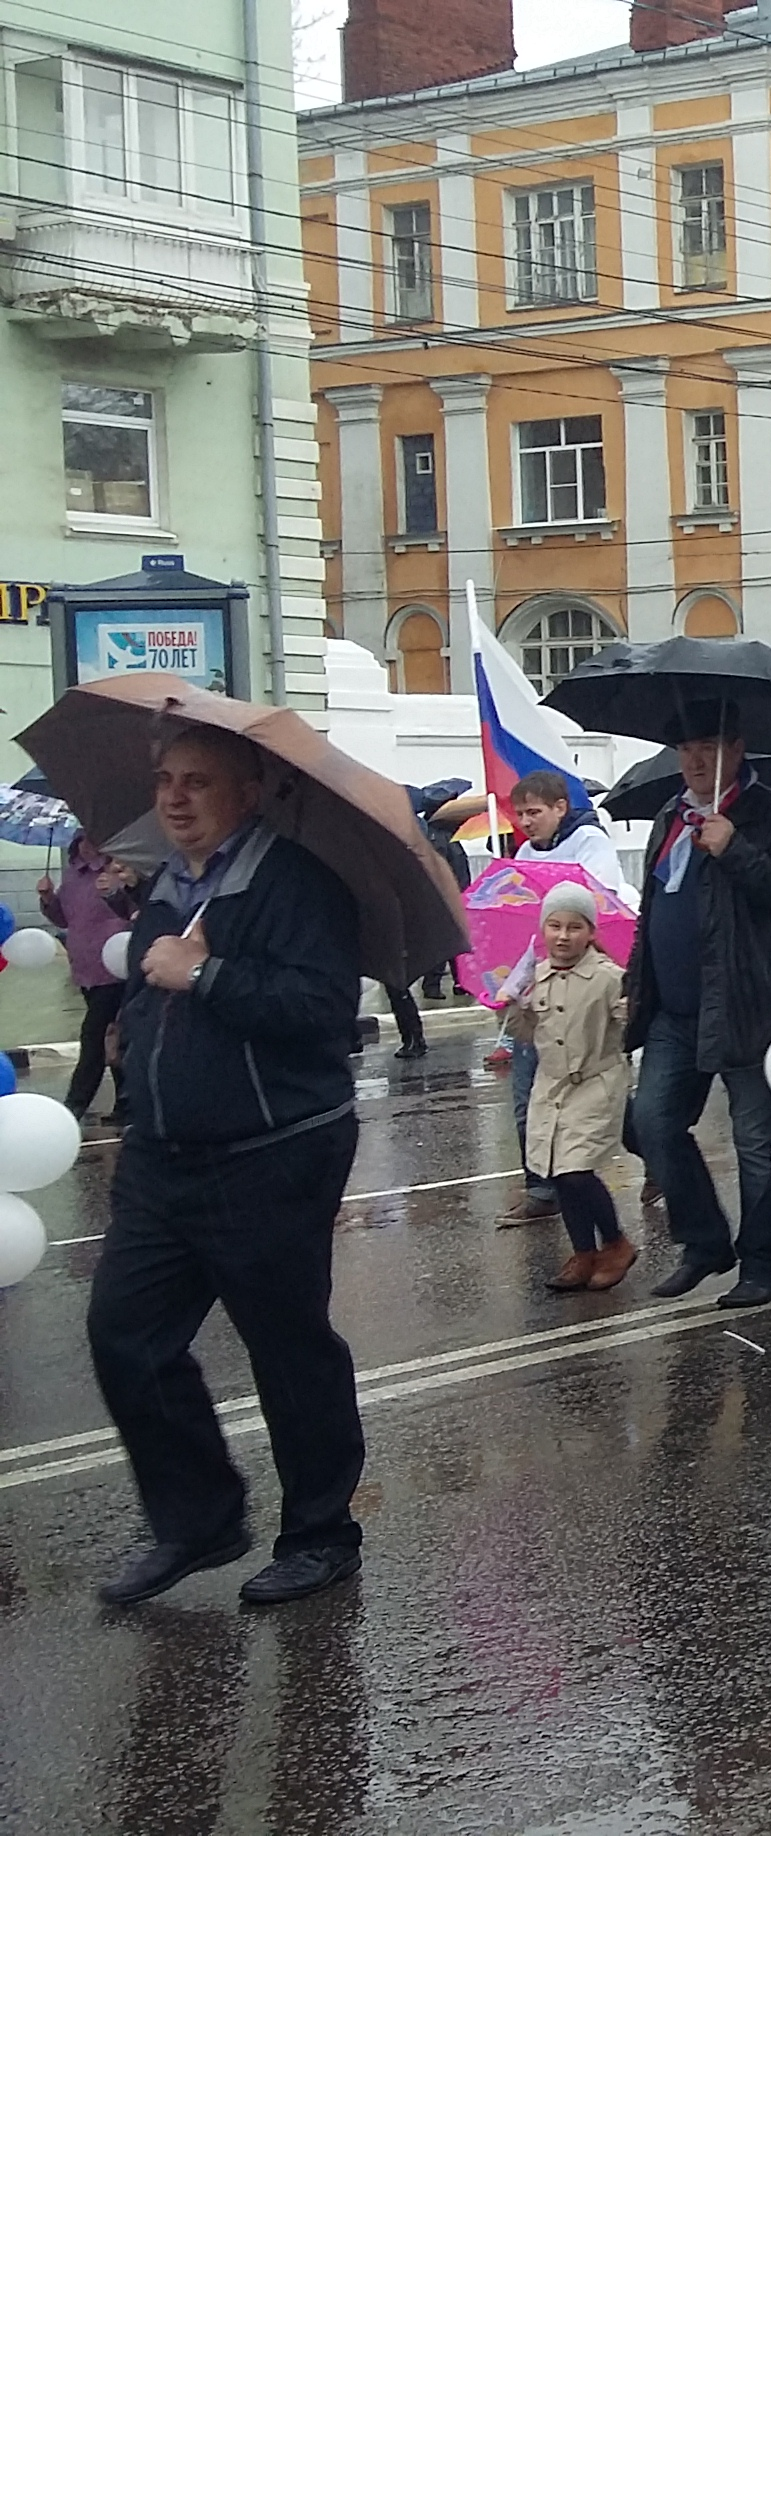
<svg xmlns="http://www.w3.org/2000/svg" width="771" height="2505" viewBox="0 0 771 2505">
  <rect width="100%" height="100%" fill="#fff"/>
  <image x="0" y="0" width="771" height="1836" href="img/1.png"/>
</svg>
